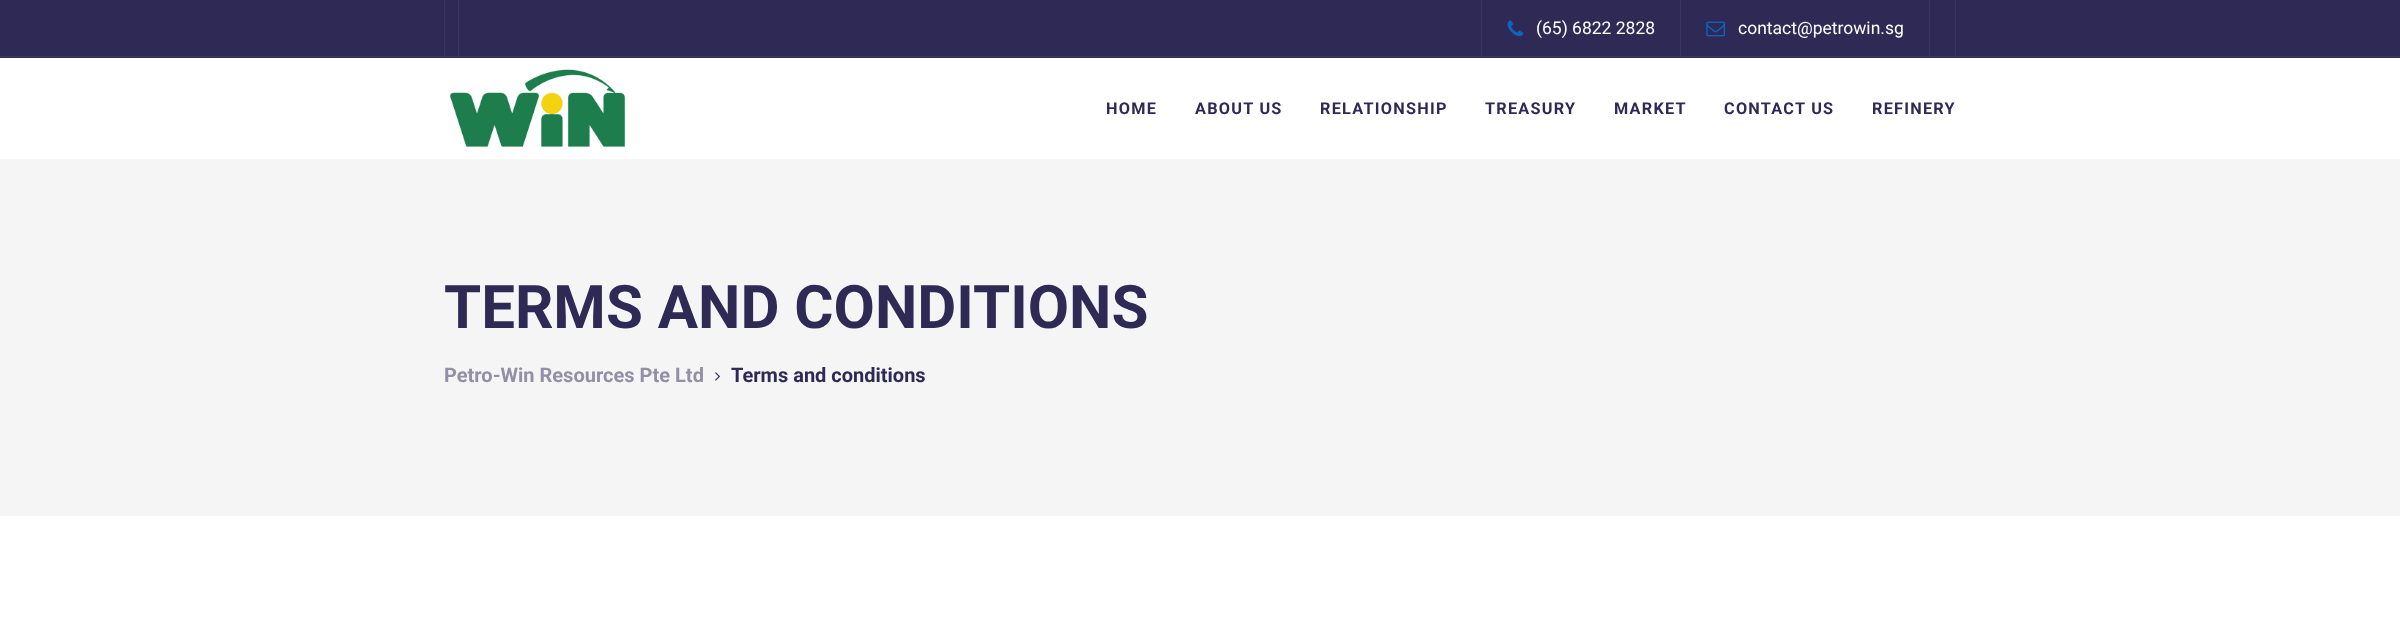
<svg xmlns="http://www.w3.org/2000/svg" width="2400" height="643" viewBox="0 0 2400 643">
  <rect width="100%" height="100%" fill="#fff"/>
  <path d="M0 0h2400v58H0z" fill="#2f2956"/>
  <path d="M0 56h2400v1H0z" fill="#3c375d"/>
  <path d="M458 0h1v56H458z" fill="#3c375d"/>
  <path d="M444 0h1v56H444z" fill="#3c375d"/>
  <path d="M1481 0h1v56H1481z" fill="#3c375d"/>
  <path d="M1680 0h1v56H1680z" fill="#3c375d"/>
  <image x="1507" y="20" width="17" height="17" href="img/1.png"/>
  <image x="1706" y="21" width="19" height="16" href="img/2.png"/>
  <path d="M1955 0h1v56H1955z" fill="#3c375d"/>
  <path d="M1929 0h1v56H1929z" fill="#3c375d"/>
  <image x="449" y="69" width="177" height="78" href="img/3.png"/>
  <path d="M0 159h2400v357H0z" fill="#f5f5f5"/>
  <image x="715" y="372" width="5" height="9" href="img/4.png"/>
  <g font-family="Roboto" font-size="17.5" fill="#fff">
    <text x="1536" y="34">(65) 6822 2828</text>
    <text x="1738" y="34">contact@petrowin.sg</text>
  </g>
  <g font-family="Roboto" font-size="16.25" font-weight="bold" letter-spacing="1.25" fill="#2f2956">
    <text x="1106" y="114">HOME</text>
    <text x="1195" y="114">ABOUT US</text>
    <text x="1320" y="114">RELATIONSHIP</text>
    <text x="1485" y="114">TREASURY</text>
    <text x="1614" y="114">MARKET</text>
    <text x="1724" y="114">CONTACT US</text>
    <text x="1872" y="114">REFINERY</text>
  </g>
  <text x="444" y="328" font-family="Roboto" font-size="60" font-weight="bold" fill="#2f2956">TERMS AND CONDITIONS</text>
  <text x="444" y="382" font-family="Roboto" font-size="20" font-weight="bold" fill="#928fa6">Petro-Win Resources Pte Ltd</text>
  <text x="731" y="382" font-family="Roboto" font-size="20" font-weight="bold" fill="#2f2956">Terms and conditions</text>
</svg>
